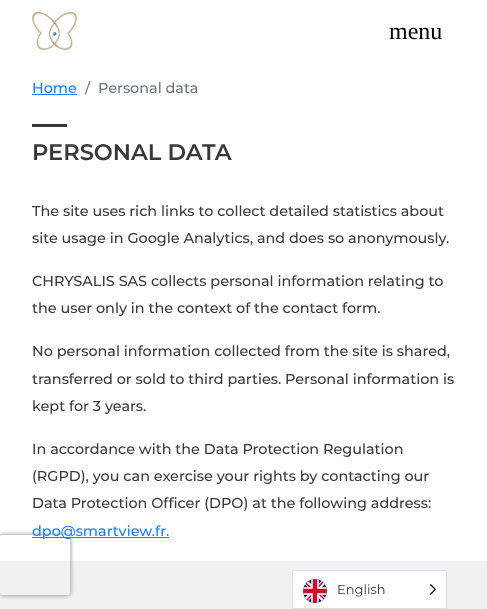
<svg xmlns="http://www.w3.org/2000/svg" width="487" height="609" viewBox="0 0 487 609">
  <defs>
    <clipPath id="clip1"><path d="M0 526H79V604H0ZM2 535H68C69 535 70 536 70 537V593C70 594 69 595 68 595H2C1 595 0 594 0 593V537C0 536 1 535 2 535Z" clip-rule="evenodd"/></clipPath>
  </defs>
  <rect width="100%" height="100%" fill="#fff"/>
  <image x="32" y="12" width="45" height="38" href="img/1.png"/>
  <path d="M32 94h45v1H32z" fill="#1c7dff"/>
  <path d="M32 124h35v3H32z" fill="#383838"/>
  <path d="M32 537h137v1H32z" fill="#1c7dff"/>
  <path d="M0 561h487v48H0z" fill="#eff1f4"/>
  <g clip-path="url(#clip1)">
    <rect y="535" width="70" height="60" rx="2" fill="#808080" filter="blur(2.5px)"/>
  </g>
  <path d="M292.5 570.5h154v38H292.5z" fill="#fff" stroke="#e0e0e0"/>
  <image x="303" y="579" width="24" height="24" href="img/2.png"/>
  <image x="430" y="584" width="6" height="11" href="img/3.png"/>
  <text x="389" y="39" font-family="Liberation Serif" font-size="24" fill="#000">menu</text>
  <text x="32" y="93" font-family="Montserrat" font-size="14.4" font-weight="500" fill="#1c7dff">Home</text>
  <g font-family="Montserrat" font-size="14.4" font-weight="500" fill="#6c757d">
    <text x="85" y="93">/</text>
    <text x="98" y="93">Personal data</text>
  </g>
  <text x="32" y="160" font-family="Montserrat" font-size="22.5" font-weight="600" fill="#383838">PERSONAL DATA</text>
  <g font-family="Montserrat" font-size="14.4" font-weight="500" fill="#383838">
    <text x="32" y="216">The site uses rich links to collect detailed statistics about</text>
    <text x="32" y="243">site usage in Google Analytics, and does so anonymously.</text>
    <text x="32" y="286">CHRYSALIS SAS collects personal information relating to</text>
    <text x="32" y="313">the user only in the context of the contact form.</text>
    <text x="32" y="356">No personal information collected from the site is shared,</text>
    <text x="32" y="384">transferred or sold to third parties. Personal information is</text>
    <text x="32" y="411">kept for 3 years.</text>
    <text x="32" y="454">In accordance with the Data Protection Regulation</text>
    <text x="32" y="481">(RGPD), you can exercise your rights by contacting our</text>
    <text x="32" y="508">Data Protection Officer (DPO) at the following address:</text>
  </g>
  <text x="32" y="536" font-family="Montserrat" font-size="14.4" font-weight="500" fill="#1c7dff">dpo@smartview.fr.</text>
  <text x="337" y="594" font-family="Montserrat" font-size="13" fill="#383838">English</text>
</svg>
